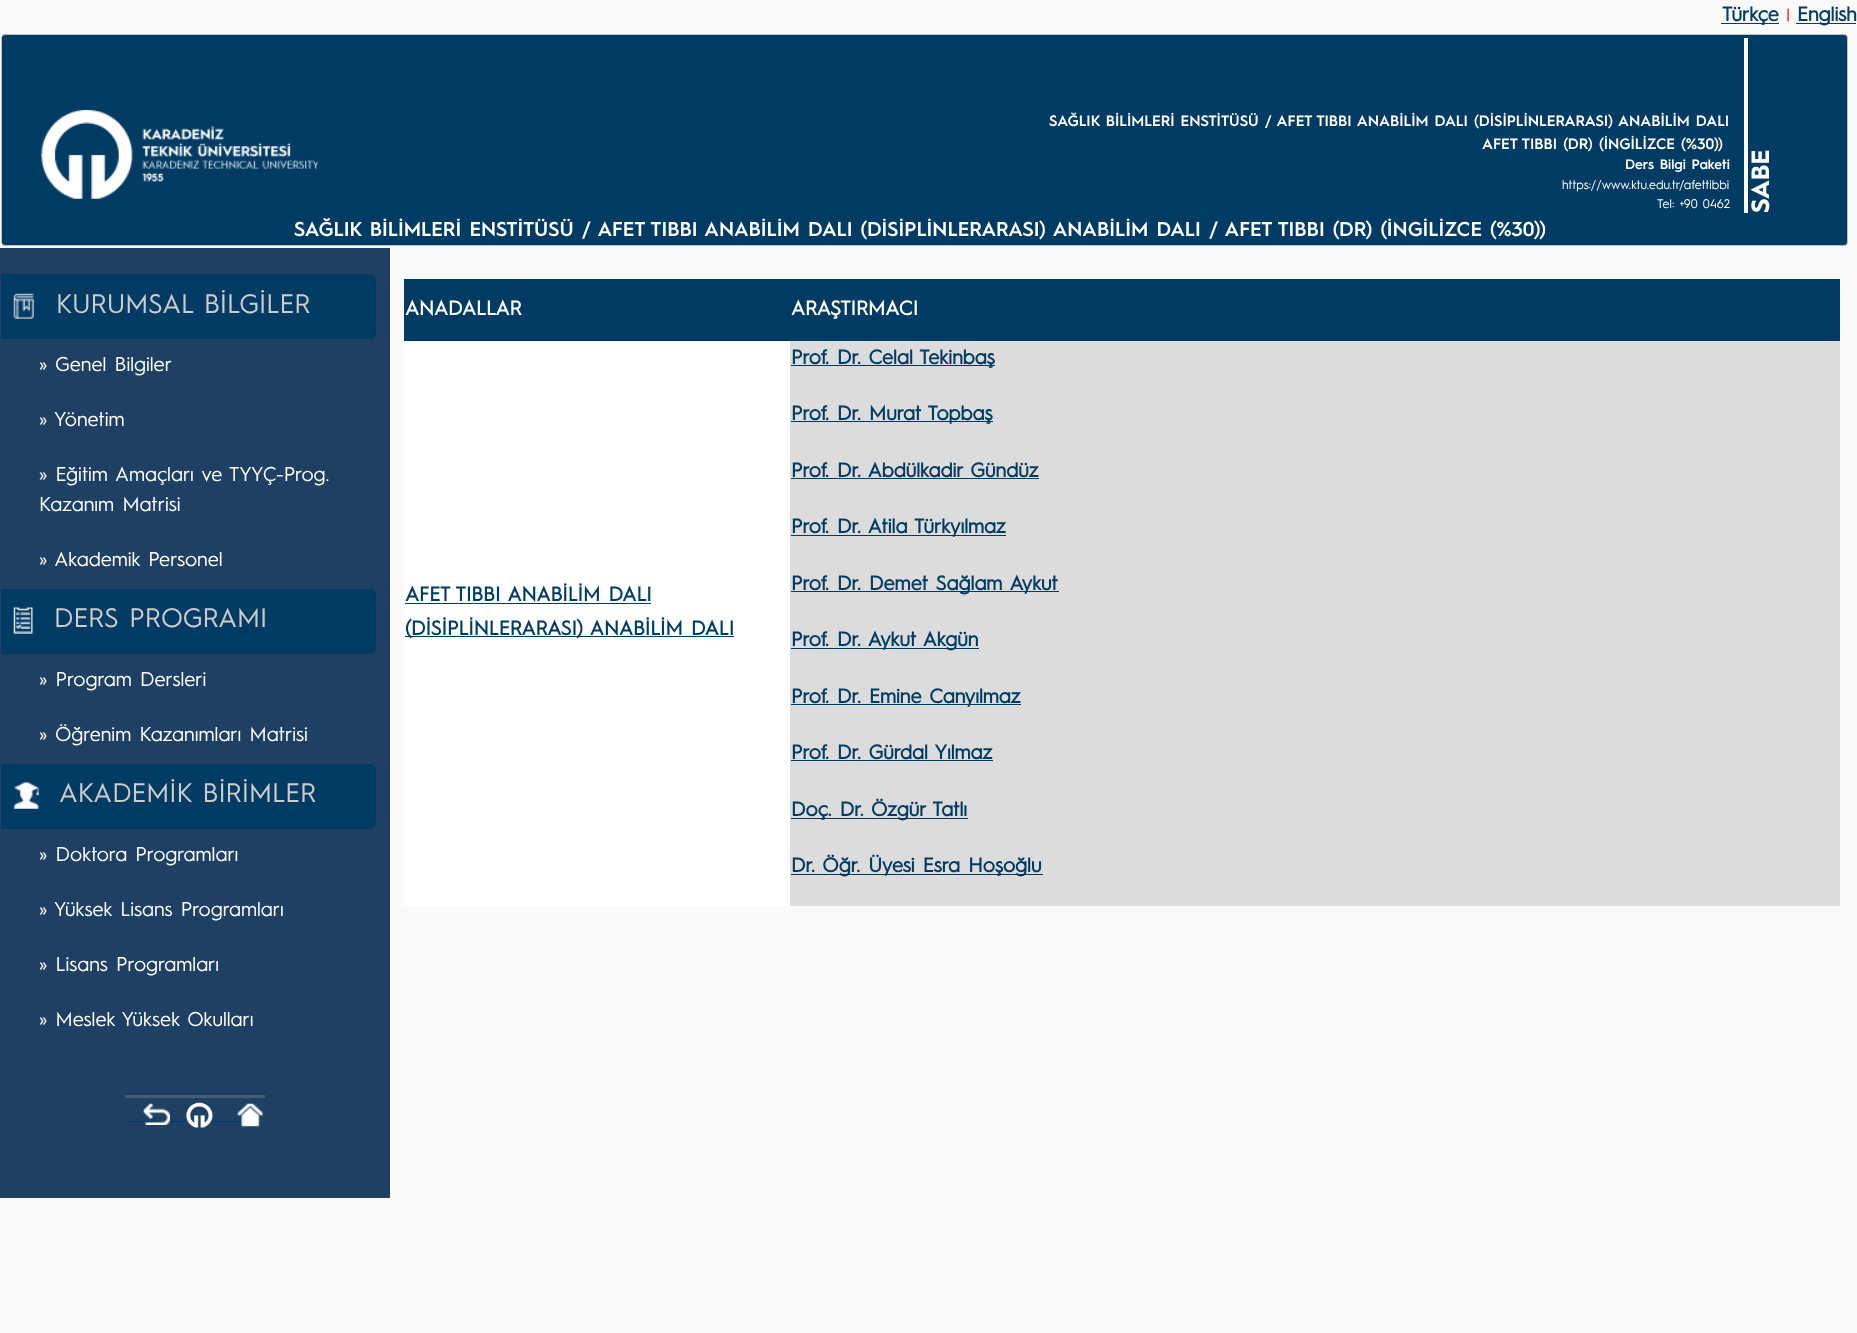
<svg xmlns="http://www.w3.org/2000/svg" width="1857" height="1333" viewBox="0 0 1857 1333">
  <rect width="100%" height="100%" fill="#fafafa"/>
  <path d="M1721 23h58v1H1721z" fill="#003b64"/>
  <path d="M1796 23h60v1H1796z" fill="#003b64"/>
  <rect x="1.5" y="34.5" width="1846" height="211" rx="3.5" fill="#003b64" stroke="#c0c0c0"/>
  <image x="41" y="109" width="277" height="90" href="img/1.png"/>
  <path d="M1744 38h4v175H1744z" fill="#fff"/>
  <path d="M0 248h390v950H0z" fill="#1f4065"/>
  <path d="M1 274H370C373.5 274 376 276.5 376 280V333C376 336.5 373.5 339 370 339H1Z" fill="#003b64"/>
  <image x="13" y="293" width="21" height="26" href="img/2.png"/>
  <path d="M1 589H370C373.5 589 376 591.5 376 595V648C376 651.5 373.5 654 370 654H1Z" fill="#003b64"/>
  <image x="13" y="607" width="20" height="27" href="img/3.png"/>
  <path d="M1 764H370C373.5 764 376 766.5 376 770V823C376 826.5 373.5 829 370 829H1Z" fill="#003b64"/>
  <image x="13" y="782" width="26" height="27" href="img/4.png"/>
  <path d="M125 1095h140v3H125z" fill="#455c75"/>
  <path d="M126 1121h18v1H126z" fill="#003b64"/>
  <image x="143" y="1103" width="27" height="22" href="img/5.png"/>
  <path d="M170 1121h16v1H170z" fill="#003b64"/>
  <image x="186" y="1102" width="27" height="26" href="img/6.png"/>
  <path d="M213 1121h25v1H213z" fill="#003b64"/>
  <image x="237" y="1103" width="26" height="24" href="img/7.png"/>
  <path d="M404 279h1436v62H404z" fill="#003b64"/>
  <path d="M790 341h1050v565H790z" fill="#dcdcdc"/>
  <path d="M791 365h204v1H791z" fill="#003b64"/>
  <path d="M791 421h202v1H791z" fill="#003b64"/>
  <path d="M791 478h248v1H791z" fill="#003b64"/>
  <path d="M791 535h215v1H791z" fill="#003b64"/>
  <path d="M404 341h386v565H404z" fill="#fff"/>
  <path d="M405 603h246v1H405z" fill="#003b64"/>
  <path d="M405 636h329v1H405z" fill="#003b64"/>
  <path d="M791 591h268v1H791z" fill="#003b64"/>
  <path d="M791 648h188v1H791z" fill="#003b64"/>
  <path d="M791 704h230v1H791z" fill="#003b64"/>
  <path d="M791 760h202v1H791z" fill="#003b64"/>
  <path d="M791 818h177v1H791z" fill="#003b64"/>
  <path d="M791 874h252v1H791z" fill="#003b64"/>
  <text x="1722" y="21" font-family="'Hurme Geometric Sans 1'" font-size="20" font-weight="bold" fill="#003b64">Türkçe</text>
  <text x="1786" y="21" font-family="'Hurme Geometric Sans 1'" font-size="17" fill="#f00">|</text>
  <text x="1797" y="21" font-family="'Hurme Geometric Sans 1'" font-size="20" font-weight="bold" fill="#003b64">English</text>
  <g font-family="'Hurme Geometric Sans 1'" font-size="15" font-weight="600" fill="#fff">
    <text x="1049" y="126">SAĞLIK BİLİMLERİ ENSTİTÜSÜ / AFET TIBBI ANABİLİM DALI (DİSİPLİNLERARASI) ANABİLİM DALI</text>
    <text x="1482" y="149">AFET TIBBI (DR) (İNGİLİZCE (%30))</text>
  </g>
  <text x="1625" y="169" font-family="'Hurme Geometric Sans 1'" font-size="13.75" font-weight="600" fill="#fff">Ders Bilgi Paketi</text>
  <g font-family="'Hurme Geometric Sans 1'" font-size="12.5" fill="#fff">
    <text x="1562" y="189">https://www.ktu.edu.tr/afettibbi</text>
    <text x="1657" y="208">Tel: +90 0462</text>
  </g>
  <text x="1769" y="213" transform="rotate(-90 1769 213)" font-family="'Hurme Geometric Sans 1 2'" font-size="25" font-weight="bold" fill="#fff">SABE</text>
  <text x="294" y="236" font-family="'Hurme Geometric Sans 1'" font-size="20" font-weight="600" fill="#fff">SAĞLIK BİLİMLERİ ENSTİTÜSÜ / AFET TIBBI ANABİLİM DALI (DİSİPLİNLERARASI) ANABİLİM DALI / AFET TIBBI (DR) (İNGİLİZCE (%30))</text>
  <text x="56" y="313" font-family="'Hurme Geometric Sans 1'" font-size="26.75" fill="#ccc">KURUMSAL BİLGİLER</text>
  <g font-family="'Hurme Geometric Sans 1'" font-size="20" fill="#fff">
    <text x="39" y="371">» Genel Bilgiler</text>
    <text x="39" y="426">» Yönetim</text>
    <text x="39" y="481">» Eğitim Amaçları ve TYYÇ-Prog.</text>
    <text x="39" y="511">Kazanım Matrisi</text>
    <text x="39" y="566">» Akademik Personel</text>
  </g>
  <text x="54" y="627" font-family="'Hurme Geometric Sans 1'" font-size="26.75" fill="#ccc">DERS PROGRAMI</text>
  <g font-family="'Hurme Geometric Sans 1'" font-size="20" fill="#fff">
    <text x="39" y="686">» Program Dersleri</text>
    <text x="39" y="741">» Öğrenim Kazanımları Matrisi</text>
  </g>
  <text x="59" y="802" font-family="'Hurme Geometric Sans 1'" font-size="26.75" fill="#ccc">AKADEMİK BİRİMLER</text>
  <g font-family="'Hurme Geometric Sans 1'" font-size="20" fill="#fff">
    <text x="39" y="861">» Doktora Programları</text>
    <text x="39" y="916">» Yüksek Lisans Programları</text>
    <text x="39" y="971">» Lisans Programları</text>
    <text x="39" y="1026">» Meslek Yüksek Okulları</text>
  </g>
  <g font-family="'Hurme Geometric Sans 1'" font-size="20" font-weight="bold" fill="#fff">
    <text x="405" y="315">ANADALLAR</text>
    <text x="791" y="315">ARAŞTIRMACI</text>
  </g>
  <g font-family="'Hurme Geometric Sans 1'" font-size="20" font-weight="bold" fill="#003b64">
    <text x="791" y="364">Prof. Dr. Celal Tekinbaş</text>
    <text x="791" y="420">Prof. Dr. Murat Topbaş</text>
    <text x="791" y="477">Prof. Dr. Abdülkadir Gündüz</text>
    <text x="791" y="533">Prof. Dr. Atila Türkyılmaz</text>
    <text x="405" y="601">AFET TIBBI ANABİLİM DALI</text>
    <text x="405" y="635">(DİSİPLİNLERARASI) ANABİLİM DALI</text>
    <text x="791" y="590">Prof. Dr. Demet Sağlam Aykut</text>
    <text x="791" y="646">Prof. Dr. Aykut Akgün</text>
    <text x="791" y="703">Prof. Dr. Emine Canyılmaz</text>
    <text x="791" y="759">Prof. Dr. Gürdal Yılmaz</text>
    <text x="791" y="816">Doç. Dr. Özgür Tatlı</text>
    <text x="791" y="872">Dr. Öğr. Üyesi Esra Hoşoğlu</text>
  </g>
</svg>
